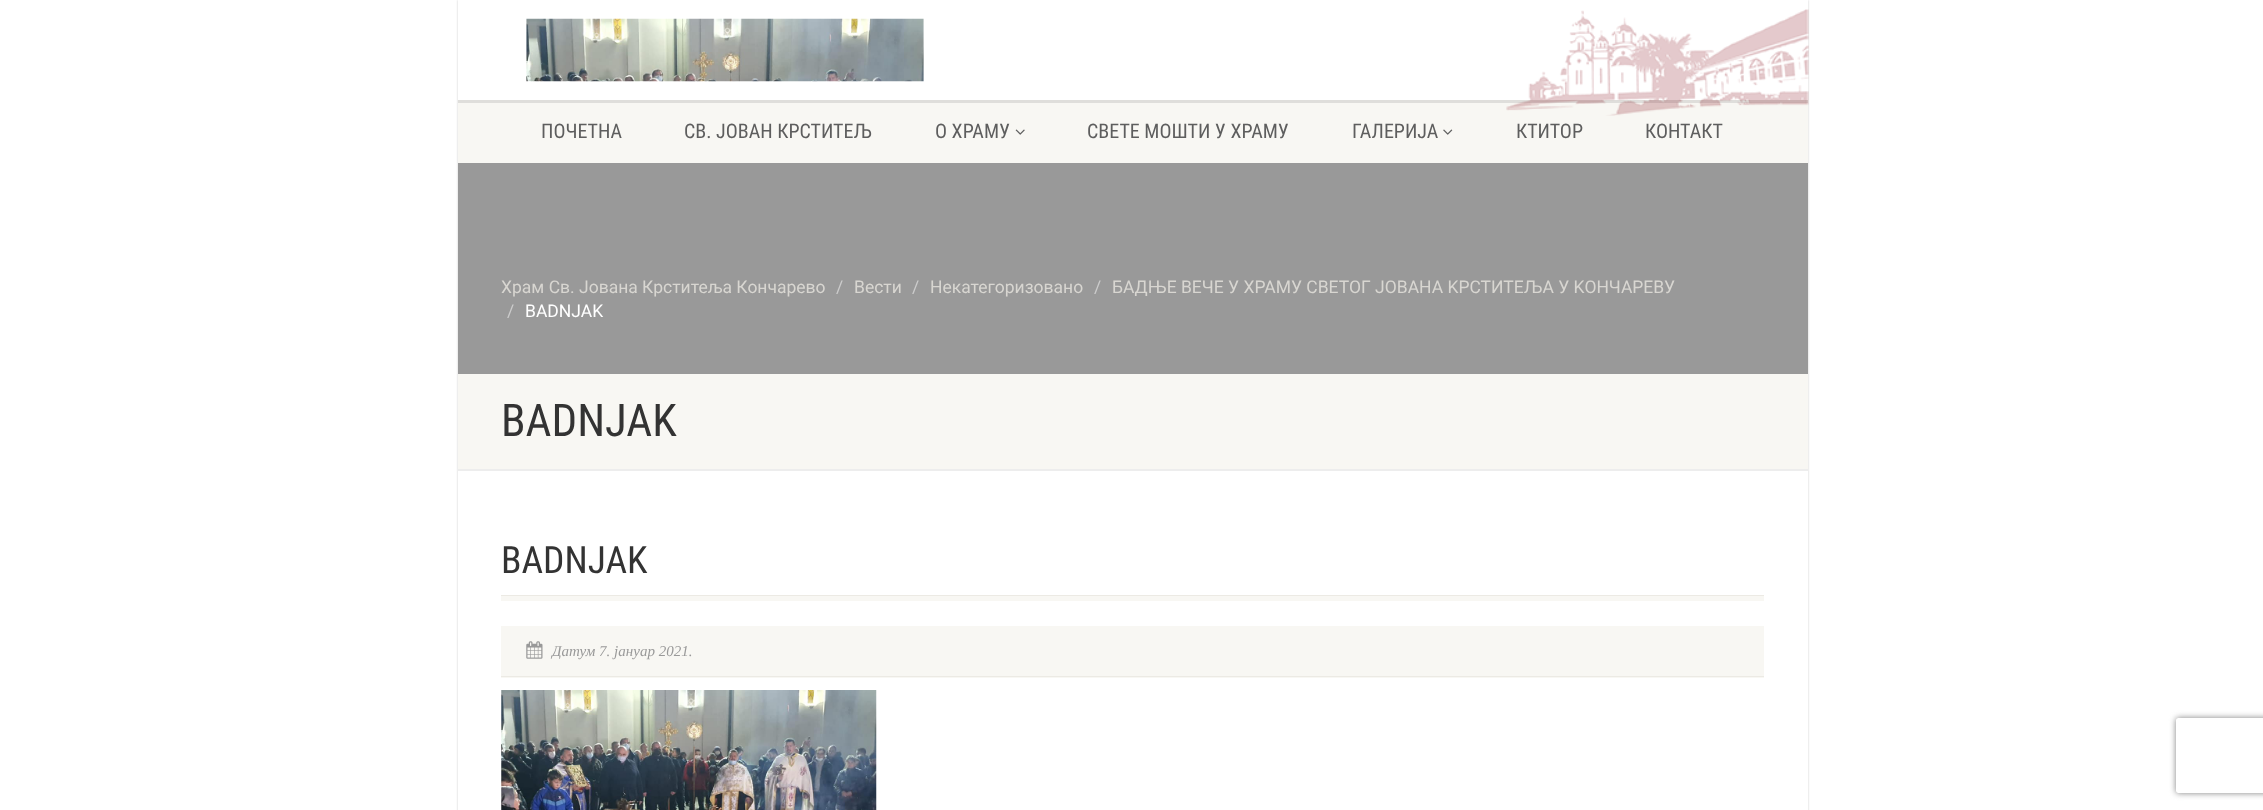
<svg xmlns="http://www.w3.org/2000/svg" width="2263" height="810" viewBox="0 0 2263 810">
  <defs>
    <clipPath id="clip1"><path d="M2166 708H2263V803H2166ZM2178.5 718H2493.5C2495 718 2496 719 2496 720.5V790.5C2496 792 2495 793 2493.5 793H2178.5C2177 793 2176 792 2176 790.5V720.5C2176 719 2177 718 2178.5 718Z" clip-rule="evenodd"/></clipPath>
  </defs>
  <rect width="100%" height="100%" fill="#fff"/>
  <path d="M458 0h1350v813H458z" fill="#00000033" filter="blur(1px)"/>
  <path d="M458 0h1350v810H458z" fill="#fff"/>
  <path d="M458 100V103H1808V3V100Z" fill="#dfdedb"/>
  <image x="526" y="18" width="398" height="64" href="img/1.png"/>
  <path d="M458 103h1350v60H458z" fill="#f8f7f3"/>
  <image x="1506" y="9" width="303" height="107" href="img/2.png"/>
  <image x="1015" y="129" width="10" height="6" href="img/3.png"/>
  <image x="1443" y="129" width="10" height="6" href="img/4.png"/>
  <path d="M458 163h1350v211H458z" fill="#999"/>
  <path d="M458 469V471H1808V376V469Z" fill="#ededed"/>
  <path d="M458 374h1350v95H458z" fill="#f8f7f3"/>
  <path d="M501 595h1263v1H501z" fill="#eceae4"/>
  <path d="M501 596h1263v5H501z" fill="#f8f7f3"/>
  <path d="M501 626h1263v52H501z" fill="#f8f7f3"/>
  <path d="M501 676h1263v1H501z" fill="#eceae4"/>
  <image x="526" y="641" width="17" height="18" href="img/5.png"/>
  <image x="501" y="690" width="376" height="120" href="img/6.png"/>
  <g clip-path="url(#clip1)">
    <rect x="2176" y="718" width="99" height="75" rx="2.5" fill="#808080" filter="blur(3px)"/>
  </g>
  <g font-family="Roboto Condensed" font-size="20" fill="#5e5e5e">
    <text x="541" y="138">ПОЧЕТНА</text>
    <text x="684" y="138">СВ. ЈОВАН КРСТИТЕЉ</text>
    <text x="935" y="138">О ХРАМУ</text>
    <text x="1087" y="138">СВЕТЕ МОШТИ У ХРАМУ</text>
    <text x="1352" y="138">ГАЛЕРИЈА</text>
    <text x="1516" y="138">КТИТОР</text>
    <text x="1645" y="138">КОНТАКТ</text>
  </g>
  <text x="501" y="293" font-family="Roboto" font-size="17.5" fill="#d8d6d1">Храм Св. Јована Крститеља Кончарево</text>
  <text x="836" y="293" font-family="Roboto" font-size="17.5" fill="#ccc">/</text>
  <text x="854" y="293" font-family="Roboto" font-size="17.5" fill="#d8d6d1">Вести</text>
  <text x="912" y="293" font-family="Roboto" font-size="17.5" fill="#ccc">/</text>
  <text x="930" y="293" font-family="Roboto" font-size="17.5" fill="#d8d6d1">Некатегоризовано</text>
  <text x="1094" y="293" font-family="Roboto" font-size="17.5" fill="#ccc">/</text>
  <text x="1112" y="293" font-family="Roboto" font-size="17.5" fill="#d8d6d1">БАДЊЕ ВЕЧЕ У ХРАМУ СВЕТОГ ЈОВАНА KРСТИТЕЉА У KОНЧАРЕВУ</text>
  <text x="507" y="317" font-family="Roboto" font-size="17.5" fill="#ccc">/</text>
  <text x="525" y="317" font-family="Roboto" font-size="17.5" fill="#fff">BADNJAK</text>
  <text x="501" y="436" font-family="Roboto Condensed" font-size="45" fill="#333">BADNJAK</text>
  <text x="501" y="573" font-family="Roboto Condensed" font-size="37.5" fill="#333">BADNJAK</text>
  <text x="552" y="656" font-family="Liberation Serif" font-size="15" font-style="italic" fill="#999">Датум 7. јануар 2021.</text>
</svg>
